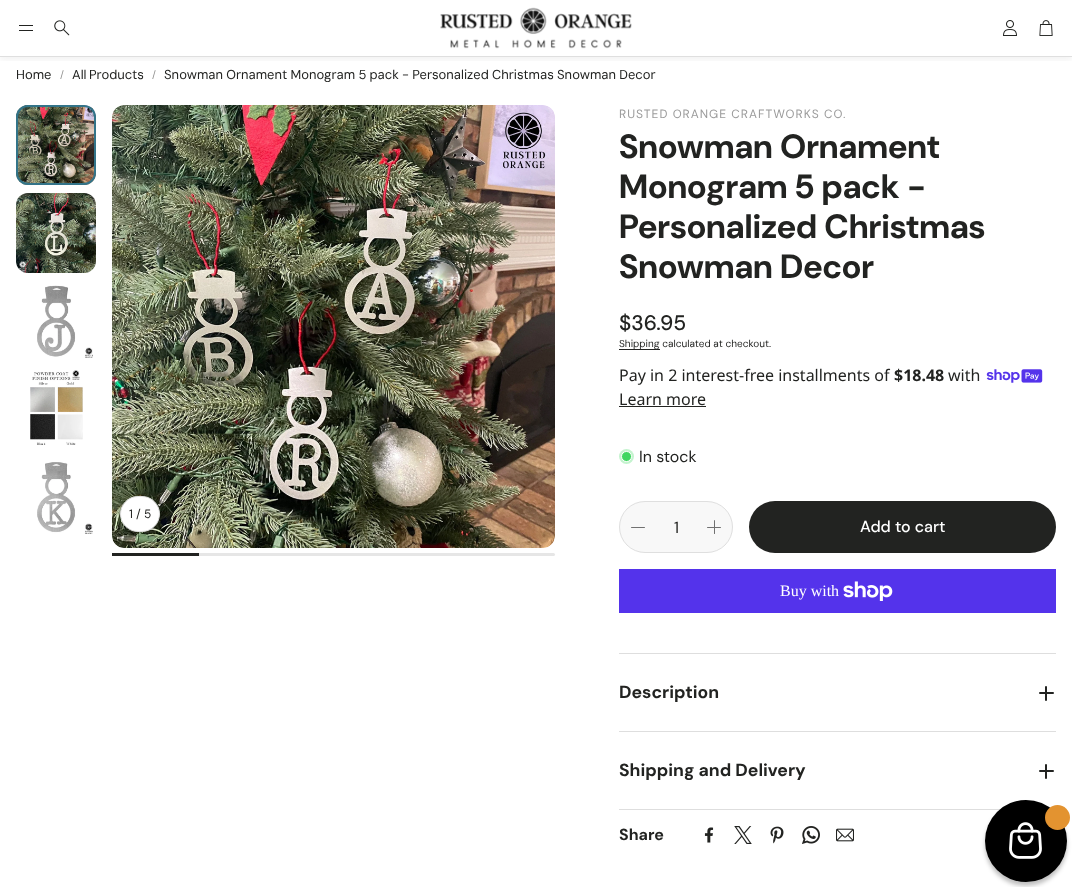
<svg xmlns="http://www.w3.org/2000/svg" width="1072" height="887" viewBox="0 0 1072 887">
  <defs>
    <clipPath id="clip1"><path d="M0 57h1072v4H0z"/></clipPath>
  </defs>
  <rect width="100%" height="100%" fill="#fff"/>
  <g clip-path="url(#clip1)">
    <path d="M0 3h1072v57H0z" fill="#0000000d" filter="blur(3px)"/>
  </g>
  <path d="M0 56h1072v1H0z" fill="#dfdfdf"/>
  <path d="M19 25h14v1H19z" fill="#222321"/>
  <path d="M19 30h14v1H19z" fill="#222321"/>
  <image x="54" y="20" width="16" height="16" href="img/1.png"/>
  <image x="440" y="7" width="192" height="42" href="img/2.png"/>
  <image x="1003" y="20" width="14" height="16" href="img/3.png"/>
  <image x="1039" y="20" width="14" height="16" href="img/4.png"/>
  <image x="16" y="105" width="80" height="80" href="img/5.png"/>
  <rect x="17" y="106" width="78" height="78" rx="11" fill="none" stroke="#337489" stroke-width="2"/>
  <image x="16" y="193" width="80" height="80" href="img/6.png"/>
  <image x="37" y="285" width="56" height="73" href="img/7.png"/>
  <image x="30" y="370" width="53" height="75" href="img/8.png"/>
  <image x="37" y="462" width="56" height="72" href="img/9.png"/>
  <image x="112" y="105" width="443" height="443" href="img/10.png"/>
  <rect x="120.5" y="496.5" width="39" height="35" rx="17.5" fill="#fff" stroke="#dfdfdf"/>
  <rect x="112" y="553" width="443" height="3" rx="1.5" fill="#e6e6e6"/>
  <path d="M112 553h87v3H112z" fill="#222321"/>
  <path d="M619 349h41v1H619z" fill="#222321"/>
  <image x="986" y="369" width="57" height="14" href="img/11.png"/>
  <path d="M619 406h87v1H619z" fill="#222321"/>
  <circle cx="626.5" cy="456.5" r="7.5" fill="#c5f3cf"/>
  <circle cx="626.5" cy="456.5" r="5" fill="#3ed660" stroke="#fff"/>
  <rect x="619.5" y="501.5" width="113" height="51" rx="25.5" fill="#f8f8f8" stroke="#dfdfdf"/>
  <rect x="631" y="527" width="14" height="1" rx="0.5" fill="#717171"/>
  <rect x="707" y="527" width="14" height="1" rx="0.5" fill="#717171"/>
  <rect x="714" y="520" width="1" height="14" rx="0.5" fill="#717171"/>
  <rect x="749" y="501" width="307" height="52" rx="26" fill="#222321"/>
  <path d="M619 569h437v44H619z" fill="#5433eb"/>
  <image x="843" y="581" width="50" height="20" href="img/12.png"/>
  <path d="M619 653h437v1H619z" fill="#dedede"/>
  <rect x="1039" y="692" width="15" height="2" rx="1" fill="#222321"/>
  <rect x="1045" y="686" width="2" height="15" rx="1" fill="#222321"/>
  <path d="M619 731h437v1H619z" fill="#dedede"/>
  <rect x="1039" y="770" width="15" height="2" rx="1" fill="#222321"/>
  <rect x="1045" y="764" width="2" height="15" rx="1" fill="#222321"/>
  <path d="M619 809h382v1H619z" fill="#dedede"/>
  <image x="704" y="827" width="10" height="16" href="img/13.png"/>
  <image x="734" y="826" width="18" height="18" href="img/14.png"/>
  <image x="770" y="826" width="14" height="18" href="img/15.png"/>
  <image x="802" y="826" width="18" height="18" href="img/16.png"/>
  <image x="836" y="828" width="18" height="14" href="img/17.png"/>
  <rect x="985" y="804" width="82" height="82" rx="41" fill="#00000040" filter="blur(2px)"/>
  <circle cx="1026" cy="841" r="41" fill="#000"/>
  <circle cx="1057.5" cy="817.5" r="12.5" fill="#e39330"/>
  <image x="1009" y="822" width="33" height="37" href="img/18.png"/>
  <text x="16" y="79" font-family="DM Sans" font-size="13" fill="#222321">Home</text>
  <text x="60" y="78" font-family="DM Sans" font-size="10" fill="#919190">/</text>
  <text x="72" y="79" word-spacing="-1" font-family="DM Sans" font-size="13" fill="#222321">All Products</text>
  <text x="152" y="78" font-family="DM Sans" font-size="10" fill="#919190">/</text>
  <text x="164" y="79" word-spacing="-0.25" font-family="DM Sans" font-size="13" fill="#222321">Snowman Ornament Monogram 5 pack - Personalized Christmas Snowman Decor</text>
  <text x="129" y="518" font-family="'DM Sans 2'" font-size="12" fill="#222321">1</text>
  <text x="136" y="518" font-family="DM Sans" font-size="12" fill="#222321">/ 5</text>
  <text x="619" y="118" font-family="DM Sans" font-size="12" letter-spacing="1" fill="#9b9b9b">RUSTED ORANGE CRAFTWORKS CO.</text>
  <g font-family="DM Sans" font-size="33.6" font-weight="bold" fill="#222321">
    <text x="619" y="158">Snowman Ornament</text>
    <text x="619" y="198">Monogram 5 pack -</text>
    <text x="619" y="238">Personalized Christmas</text>
    <text x="619" y="278">Snowman Decor</text>
  </g>
  <text x="619" y="330" font-family="DM Sans" font-size="21" font-weight="500" fill="#222321">$36.95</text>
  <text x="619" y="347" font-family="DM Sans" font-size="10" fill="#222321">Shipping calculated at checkout.</text>
  <text x="619" y="381" font-family="Noto Sans" font-size="16" fill="#222321">Pay in 2 interest-free installments of</text>
  <text x="894" y="381" font-family="Noto Sans" font-size="16" font-weight="bold" fill="#222321">$18.48</text>
  <g font-family="Noto Sans" font-size="16" fill="#222321">
    <text x="948" y="381">with</text>
    <text x="619" y="405">Learn more</text>
  </g>
  <g font-family="'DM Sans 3'" font-size="16" fill="#222321">
    <text x="639" y="462">In stock</text>
    <text x="674" y="533">1</text>
  </g>
  <text x="860" y="532" font-family="'DM Sans 2'" font-size="16" font-weight="500" fill="#fff">Add to cart</text>
  <text x="780" y="596" font-family="Liberation Serif" font-size="16" fill="#fff">Buy with</text>
  <g font-family="'DM Sans 2'" font-size="17.6" font-weight="bold" fill="#222321">
    <text x="619" y="698">Description</text>
    <text x="619" y="776">Shipping and Delivery</text>
  </g>
  <text x="619" y="840" font-family="'DM Sans 3'" font-size="16" font-weight="bold" fill="#222321">Share</text>
</svg>
